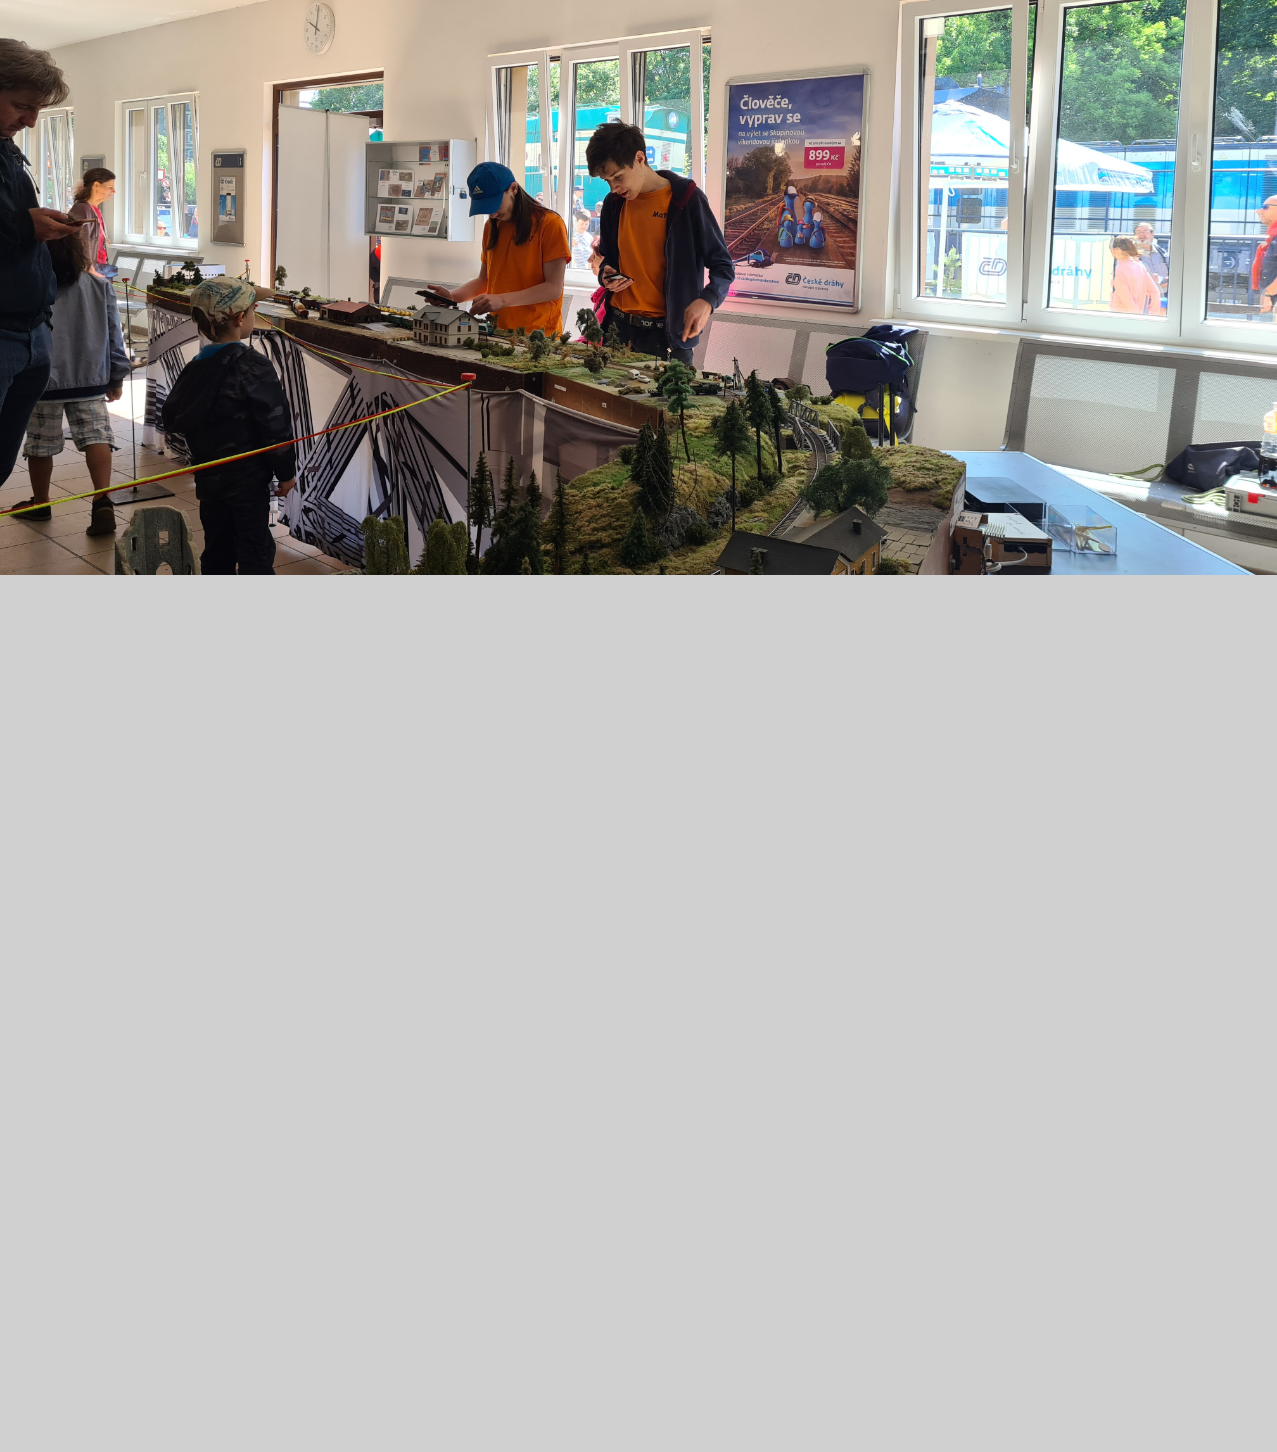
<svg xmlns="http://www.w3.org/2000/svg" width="1277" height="1452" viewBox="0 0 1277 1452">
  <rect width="100%" height="100%" fill="#d0d0d0"/>
  <image x="0" y="0" width="1277" height="575" href="img/1.png"/>
</svg>
